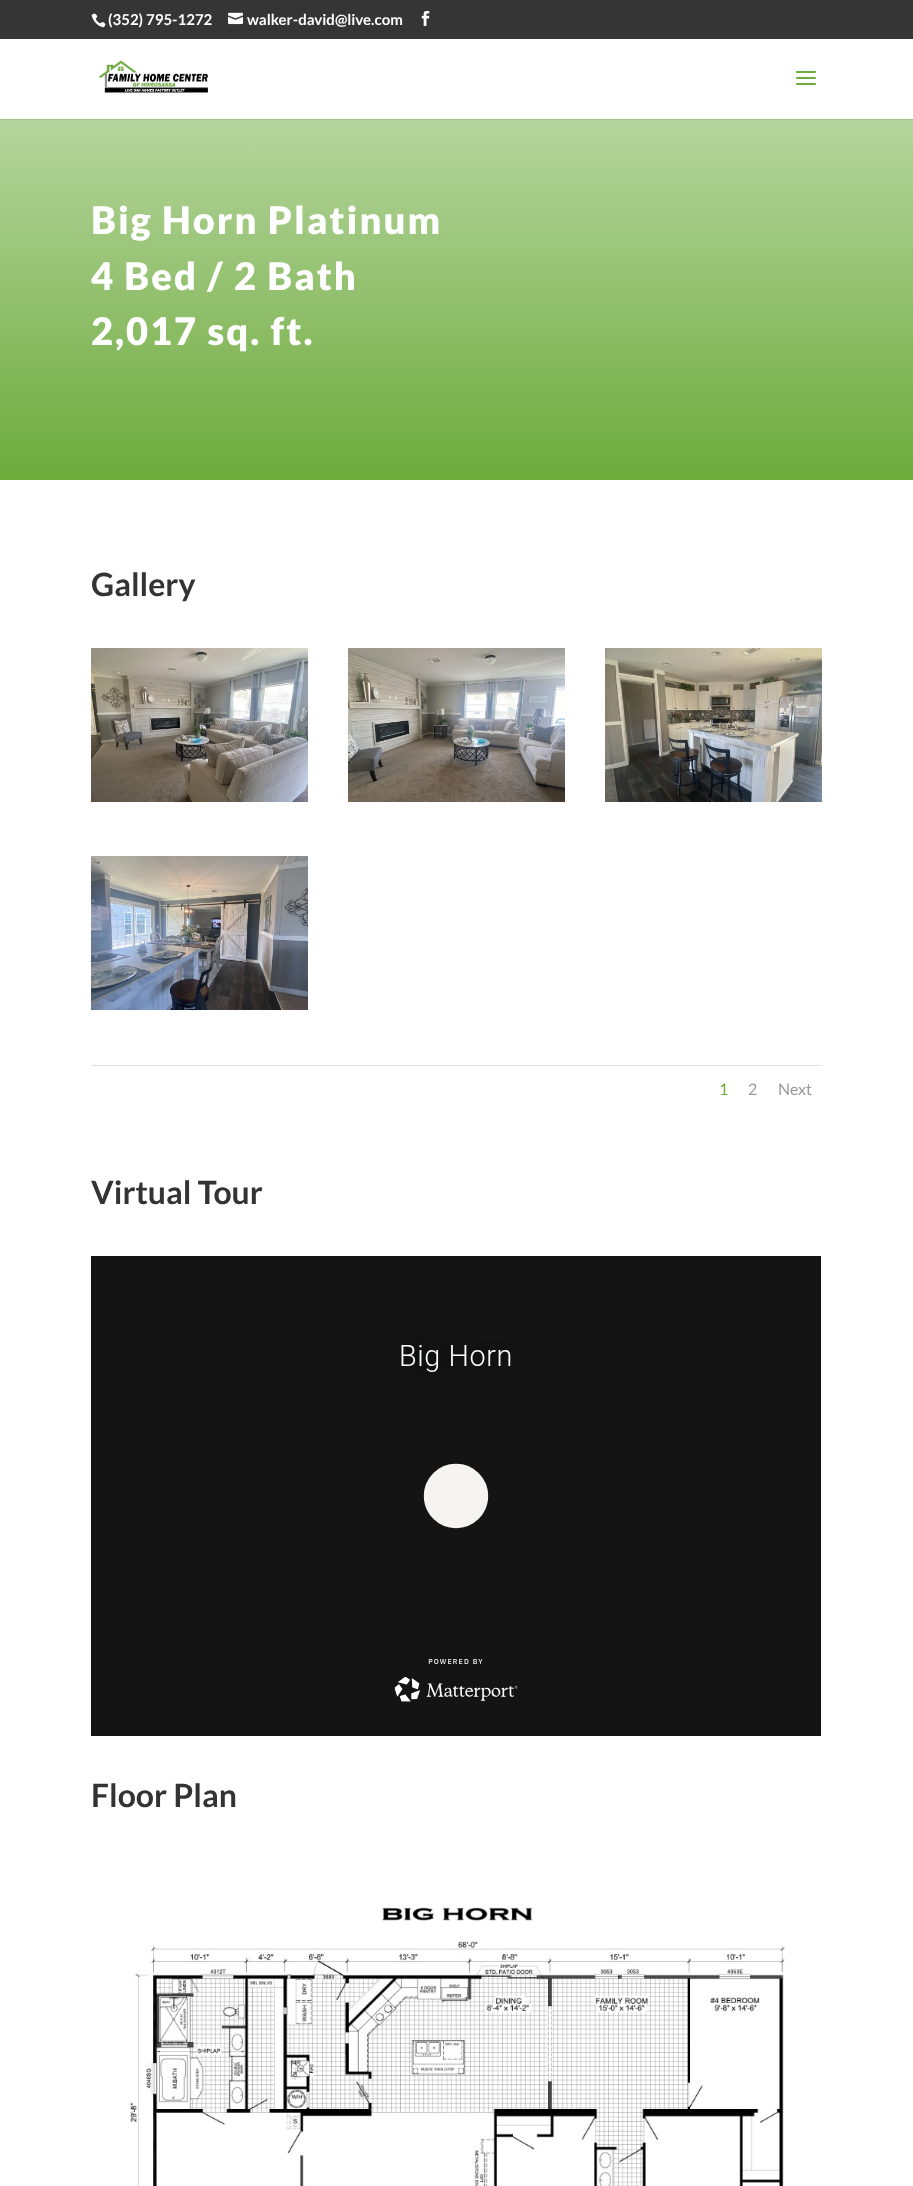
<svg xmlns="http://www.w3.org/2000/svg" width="913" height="2186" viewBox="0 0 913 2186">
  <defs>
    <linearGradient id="g1" gradientUnits="userSpaceOnUse" x1="457" y1="117" x2="457" y2="480"><stop offset="0" stop-color="#b6d59e"/><stop offset="1" stop-color="#6dab3c"/></linearGradient>
  </defs>
  <rect width="100%" height="100%" fill="#fff"/>
  <path d="M0 0h913v39H0z" fill="#353535"/>
  <image x="91" y="13" width="15" height="15" href="img/1.png"/>
  <image x="228" y="12" width="15" height="13" href="img/2.png"/>
  <image x="421" y="10" width="9" height="16" href="img/3.png"/>
  <path d="M0 119h913v1H0z" fill="#a3c08d"/>
  <image x="99" y="60" width="109" height="33" href="img/4.png"/>
  <image x="796" y="71" width="20" height="14" href="img/5.png"/>
  <path d="M0 120h913v360H0z" fill="url(#g1)"/>
  <image x="91" y="648" width="217" height="154" href="img/6.png"/>
  <image x="348" y="648" width="217" height="154" href="img/7.png"/>
  <image x="605" y="648" width="217" height="154" href="img/8.png"/>
  <image x="91" y="856" width="217" height="154" href="img/9.png"/>
  <path d="M91 1065h731v1H91z" fill="#e2e2e2"/>
  <image x="91" y="1256" width="730" height="480" href="img/10.png"/>
  <image x="130" y="1907" width="655" height="279" href="img/11.png"/>
  <g font-family="Lato" font-size="15" font-weight="bold" fill="#fff">
    <text x="108" y="25">(352) 795-1272</text>
    <text x="247" y="25">walker-david@live.com</text>
  </g>
  <g font-family="Lato" font-size="38" font-weight="900" letter-spacing="2" fill="#fff">
    <text x="91" y="234">Big Horn Platinum</text>
    <text x="91" y="290">4 Bed / 2 Bath</text>
    <text x="91" y="345">2,017 sq. ft.</text>
  </g>
  <text x="91" y="596" font-family="Lato" font-size="32" font-weight="bold" fill="#333">Gallery</text>
  <text x="719" y="1095" font-family="Lato" font-size="16" fill="#6dab3c">1</text>
  <g font-family="Lato" font-size="16" fill="#999">
    <text x="748" y="1095">2</text>
    <text x="778" y="1095">Next</text>
  </g>
  <g font-family="Lato" font-size="32" font-weight="bold" fill="#333">
    <text x="91" y="1204">Virtual Tour</text>
    <text x="91" y="1807">Floor Plan</text>
  </g>
</svg>
